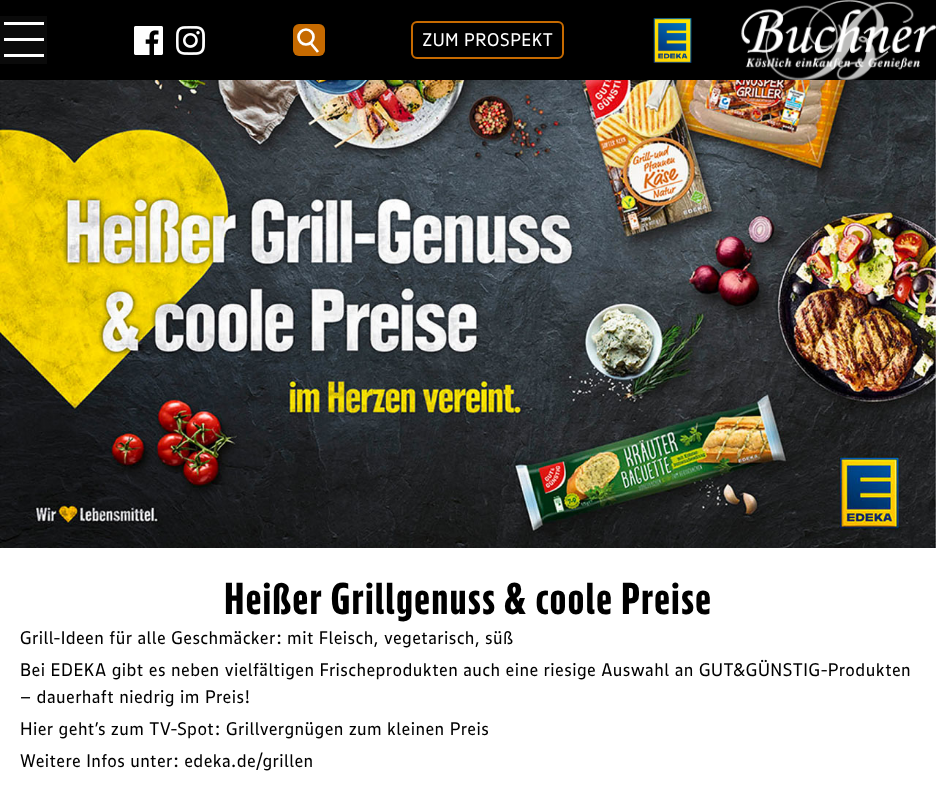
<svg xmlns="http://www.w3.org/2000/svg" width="936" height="787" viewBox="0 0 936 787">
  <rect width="100%" height="100%" fill="#fff"/>
  <path d="M0 0h936v80H0z" fill="#000"/>
  <path d="M0 16h47v48H0z" fill="#0a0a0a"/>
  <path d="M4 22h40v3H4z" fill="#fff"/>
  <path d="M4 38h40v3H4z" fill="#fff"/>
  <path d="M4 54h40v3H4z" fill="#fff"/>
  <image x="134" y="26" width="29" height="29" href="img/1.png"/>
  <image x="176" y="26" width="29" height="29" href="img/2.png"/>
  <rect x="293" y="24" width="32" height="32" rx="6" fill="#c66a00"/>
  <circle cx="306" cy="37" r="7.5" fill="none" stroke="#fff" stroke-width="2.7"/>
  <path d="M311 43.5L318 52" fill="none" stroke="#fff" stroke-width="2.7"/>
  <rect x="412" y="22" width="151" height="36" rx="5" fill="none" stroke="#c66a00" stroke-width="2"/>
  <image x="653" y="18" width="39" height="45" href="img/3.png"/>
  <image x="741" y="0" width="195" height="80" href="img/4.png"/>
  <image x="0" y="80" width="936" height="468" href="img/5.png"/>
  <text x="422" y="46" font-family="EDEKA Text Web" font-size="18" letter-spacing="0.45" fill="#fff">ZUM PROSPEKT</text>
  <text x="224" y="614" font-family="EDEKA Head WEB" font-size="44" font-weight="900" letter-spacing="1.1" fill="#000">Heißer Grillgenuss &amp; coole Preise</text>
  <g font-family="EDEKA Text Web" font-size="18" letter-spacing="0.45" fill="#000">
    <text x="20" y="644">Grill-Ideen für alle Geschmäcker: mit Fleisch, vegetarisch, süß</text>
    <text x="20" y="676">Bei EDEKA gibt es neben vielfältigen Frischeprodukten auch eine riesige Auswahl an GUT&amp;GÜNSTIG-Produkten</text>
    <text x="20" y="703">– dauerhaft niedrig im Preis!</text>
    <text x="20" y="735">Hier geht’s zum TV-Spot:</text>
    <text x="226" y="735">Grillvergnügen zum kleinen Preis</text>
    <text x="20" y="767">Weitere Infos unter: edeka.de/grillen</text>
  </g>
</svg>
